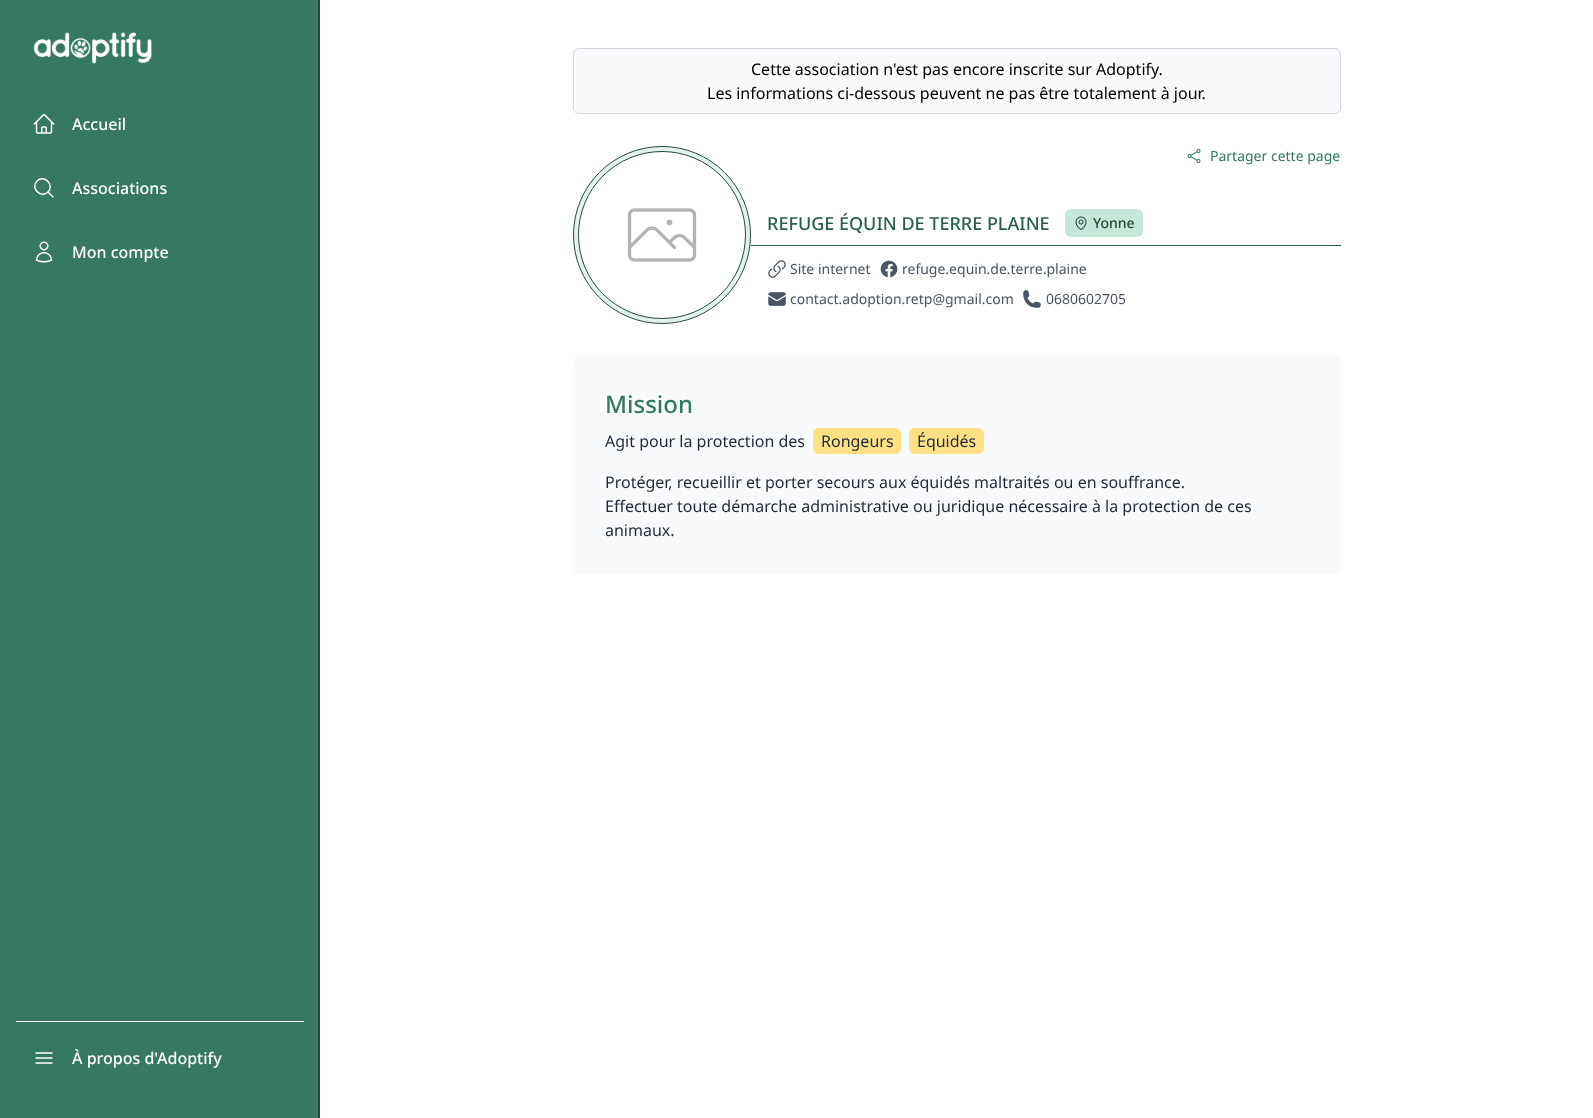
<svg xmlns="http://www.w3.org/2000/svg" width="1593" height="1118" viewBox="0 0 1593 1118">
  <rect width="100%" height="100%" fill="#fff"/>
  <path d="M0 0h318v1118H0z" fill="#357960"/>
  <path d="M318 0h2v1118H318z" fill="#264a3f"/>
  <image x="33" y="32" width="119" height="32" href="img/1.png"/>
  <image x="33" y="114" width="22" height="20" href="img/2.png"/>
  <path d="M53 197L48 192M48 192C55 185 44 174 37 181C30 188 41 199 48 192Z" fill="none" stroke="#fff" stroke-width="1.5" stroke-linecap="round" stroke-linejoin="round"/>
  <image x="35" y="241" width="18" height="22" href="img/3.png"/>
  <path d="M16 1021h288v1H16z" fill="#fff"/>
  <path d="M36 1053H52M36 1058H52M36 1063H52" fill="none" stroke="#fff" stroke-width="1.5" stroke-linecap="round" stroke-linejoin="round"/>
  <rect x="573.5" y="48.5" width="767" height="65" rx="5.5" fill="#f9fafb" stroke="#d1d5dc"/>
  <circle cx="662" cy="235" r="88.5" fill="#e3f3ec" stroke="#264a3f"/>
  <circle cx="662" cy="235" r="83.5" fill="#fff" stroke="#264a3f"/>
  <image x="627" y="208" width="70" height="54" href="img/4.png"/>
  <image x="1187" y="149" width="14" height="14" href="img/5.png"/>
  <path d="M751 245h590v1H751z" fill="#2d5f4d"/>
  <rect x="1065" y="209" width="78" height="28" rx="6" fill="#c6e6d8"/>
  <image x="1075" y="216" width="12" height="14" href="img/6.png"/>
  <image x="768" y="260" width="18" height="18" href="img/7.png"/>
  <image x="880" y="260" width="18" height="18" href="img/8.png"/>
  <image x="768" y="292" width="18" height="14" href="img/9.png"/>
  <image x="1023" y="290" width="18" height="18" href="img/10.png"/>
  <rect x="573" y="356" width="768" height="218" rx="6" fill="#f9fafb"/>
  <rect x="813" y="428" width="88" height="26" rx="6" fill="#ffe085"/>
  <rect x="909" y="428" width="75" height="26" rx="6" fill="#ffe085"/>
  <g font-family="Noto Sans" font-size="16" font-weight="500" fill="#fff">
    <text x="72" y="130">Accueil</text>
    <text x="72" y="194">Associations</text>
    <text x="72" y="258">Mon compte</text>
    <text x="72" y="1064">À propos d'Adoptify</text>
  </g>
  <g font-family="Noto Sans" font-size="16" fill="#000">
    <text x="751" y="75">Cette association n'est pas encore inscrite sur Adoptify.</text>
    <text x="707" y="99">Les informations ci-dessous peuvent ne pas être totalement à jour.</text>
  </g>
  <text x="1210" y="161" font-family="Noto Sans" font-size="14" fill="#357960">Partager cette page</text>
  <text x="767" y="230" font-family="Noto Sans" font-size="18" font-weight="500" fill="#2d5f4d">REFUGE ÉQUIN DE TERRE PLAINE</text>
  <text x="1093" y="228" font-family="Noto Sans" font-size="14" font-weight="500" fill="#264a3f">Yonne</text>
  <g font-family="Noto Sans" font-size="14" fill="#4a5565">
    <text x="790" y="274">Site internet</text>
    <text x="902" y="274">refuge.equin.de.terre.plaine</text>
    <text x="790" y="304">contact.adoption.retp@gmail.com</text>
    <text x="1046" y="304">0680602705</text>
  </g>
  <text x="605" y="413" font-family="Noto Sans" font-size="24" font-weight="500" fill="#357960">Mission</text>
  <g font-family="Noto Sans" font-size="16" fill="#1e2939">
    <text x="605" y="447">Agit pour la protection des</text>
    <text x="821" y="447">Rongeurs</text>
    <text x="917" y="447">Équidés</text>
    <text x="605" y="488">Protéger, recueillir et porter secours aux équidés maltraités ou en souffrance.</text>
    <text x="605" y="512">Effectuer toute démarche administrative ou juridique nécessaire à la protection de ces</text>
    <text x="605" y="536">animaux.</text>
  </g>
</svg>
